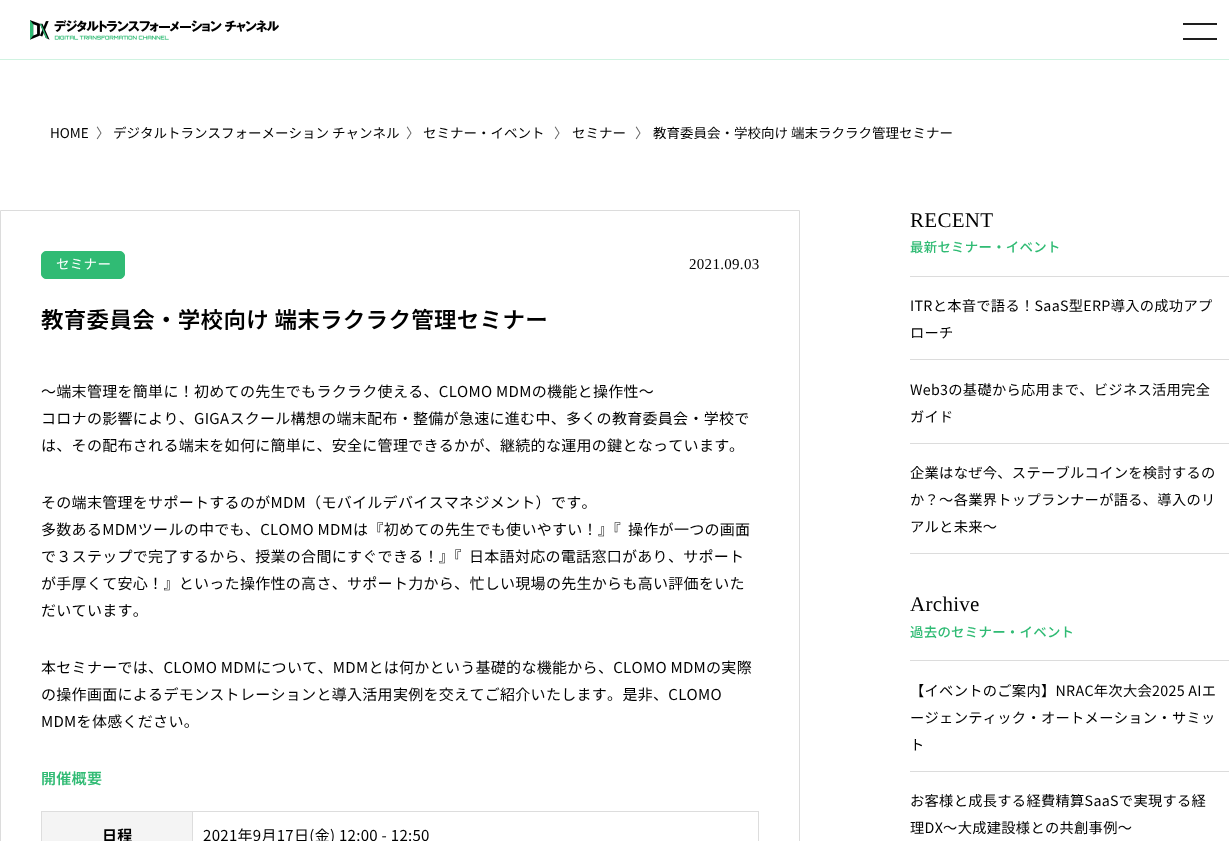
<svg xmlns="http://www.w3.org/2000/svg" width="1229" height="841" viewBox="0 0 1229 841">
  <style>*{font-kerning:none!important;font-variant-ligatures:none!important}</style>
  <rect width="100%" height="100%" fill="#fff"/>
  <image x="30" y="20" width="249" height="20" href="img/1.png"/>
  <path d="M1183 23h34v2H1183z" fill="#1e1e1e"/>
  <path d="M1183 38h34v2H1183z" fill="#1e1e1e"/>
  <path d="M0 59h1229v1H0z" fill="#d0f3e1"/>
  <path d="M0.5 210.5h799v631H0.5z" fill="none" stroke="#dcdcdc"/>
  <rect x="41.5" y="251.5" width="83" height="27" rx="4.5" fill="#30bb74" stroke="#30bb74"/>
  <path d="M41 811h718v1H41z" fill="#ddd"/>
  <path d="M41 811h1v30H41z" fill="#ddd"/>
  <path d="M42 812h150v29H42z" fill="#f4f4f4"/>
  <path d="M192 811h1v30H192z" fill="#ddd"/>
  <path d="M758 811h1v30H758z" fill="#ddd"/>
  <path d="M910 276h319v1H910z" fill="#dcdcdc"/>
  <path d="M910 359h319v1H910z" fill="#dcdcdc"/>
  <path d="M910 443h319v1H910z" fill="#dcdcdc"/>
  <path d="M910 553h319v1H910z" fill="#dcdcdc"/>
  <path d="M910 660h319v1H910z" fill="#dcdcdc"/>
  <path d="M910 771h319v1H910z" fill="#dcdcdc"/>
  <text x="50" y="138" font-family="Noto Sans JP" font-size="13.5" fill="#000">HOME</text>
  <text x="96" y="138" font-family="Noto Sans JP" font-size="13.5" fill="#666">〉</text>
  <text x="113" y="138" font-family="Noto Sans JP" font-size="13.5" fill="#000">デジタルトランスフォーメーション チャンネル</text>
  <text x="406" y="138" font-family="Noto Sans JP" font-size="13.5" fill="#666">〉</text>
  <text x="423" y="138" font-family="Noto Sans JP" font-size="13.5" fill="#000">セミナー・イベント</text>
  <text x="554" y="138" font-family="Noto Sans JP" font-size="13.5" fill="#666">〉</text>
  <text x="572" y="138" font-family="Noto Sans JP" font-size="13.5" fill="#000">セミナー</text>
  <text x="635" y="138" font-family="Noto Sans JP" font-size="13.5" fill="#666">〉</text>
  <text x="653" y="138" font-family="Noto Sans JP" font-size="13.5" fill="#000">教育委員会・学校向け 端末ラクラク管理セミナー</text>
  <text x="56" y="269" font-family="Noto Sans JP" font-size="13.5" letter-spacing="0.3" fill="#fff">セミナー</text>
  <text x="689" y="269" font-family="Liberation Serif" font-size="15" letter-spacing="0.3" fill="#000">2021.09.03</text>
  <text x="41" y="328" font-family="Noto Sans JP" font-size="22.5" font-weight="600" letter-spacing="0.3" fill="#000">教育委員会・学校向け 端末ラクラク管理セミナー</text>
  <g font-family="Noto Sans JP" font-size="15" letter-spacing="0.3" fill="#000">
    <text x="41" y="397">〜端末管理を簡単に！初めての先生でもラクラク使える、CLOMO MDMの機能と操作性〜</text>
    <text x="41" y="424">コロナの影響により、GIGAスクール構想の端末配布・整備が急速に進む中、多くの教育委員会・学校で</text>
    <text x="41" y="451">は、その配布される端末を如何に簡単に、安全に管理できるかが、継続的な運用の鍵となっています</text>
    <text x="729" y="451">。</text>
    <text x="41" y="508">その端末管理をサポートするのがMDM（モバイルデバイスマネジメント）です。</text>
    <text x="41" y="535">多数あるMDMツールの中でも、CLOMO MDMは『初めての先生でも使いやすい！』『</text>
    <text x="628" y="535">操作が一つの画面</text>
    <text x="41" y="562">で３ステップで完了するから、授業の合間にすぐできる！』『</text>
    <text x="469" y="562">日本語対応の電話窓口があり、サポート</text>
    <text x="41" y="589">が手厚くて安心！』といった操作性の高さ、サポート力から、忙しい現場の先生からも高い評価をいた</text>
    <text x="41" y="616">だいています。</text>
    <text x="41" y="673">本セミナーでは、CLOMO MDMについて、MDMとは何かという基礎的な機能から、CLOMO MDMの実際</text>
    <text x="41" y="700">の操作画面によるデモンストレーションと導入活用実例を交えてご紹介いたします。是非、CLOMO</text>
    <text x="41" y="727">MDMを体感ください。</text>
  </g>
  <text x="41" y="784" font-family="Noto Sans JP" font-size="15" font-weight="600" letter-spacing="0.3" fill="#30bb74">開催概要</text>
  <text x="102" y="841" font-family="Noto Sans JP" font-size="15" font-weight="bold" letter-spacing="0.3" fill="#000">日程</text>
  <text x="203" y="841" font-family="Noto Sans JP" font-size="15" letter-spacing="0.3" fill="#000">2021年9月17日(金) 12:00 - 12:50</text>
  <text x="910" y="227" font-family="Liberation Serif" font-size="21" letter-spacing="0.3" fill="#000">RECENT</text>
  <text x="910" y="252" font-family="Noto Sans JP" font-size="13.4" font-weight="500" letter-spacing="0.3" fill="#30bb74">最新セミナー・イベント</text>
  <g font-family="Noto Sans JP" font-size="14.25" letter-spacing="0.3" fill="#000">
    <text x="910" y="311">ITRと本音で語る！SaaS型ERP導入の成功アプ</text>
    <text x="910" y="338">ローチ</text>
    <text x="910" y="395">Web3の基礎から応用まで、ビジネス活用完全</text>
    <text x="910" y="422">ガイド</text>
    <text x="910" y="478">企業はなぜ今、ステーブルコインを検討するの</text>
    <text x="910" y="505">か？〜各業界トップランナーが語る、導入のリ</text>
    <text x="910" y="532">アルと未来〜</text>
  </g>
  <text x="910" y="611" font-family="Liberation Serif" font-size="21" letter-spacing="0.3" fill="#000">Archive</text>
  <text x="910" y="637" font-family="Noto Sans JP" font-size="13.4" font-weight="500" letter-spacing="0.3" fill="#30bb74">過去のセミナー・イベント</text>
  <g font-family="Noto Sans JP" font-size="14.25" letter-spacing="0.3" fill="#000">
    <text x="910" y="696">【イベントのご案内】NRAC年次大会2025 AIエ</text>
    <text x="910" y="723">ージェンティック・オートメーション・サミッ</text>
    <text x="910" y="750">ト</text>
    <text x="910" y="806">お客様と成長する経費精算SaaSで実現する経</text>
    <text x="910" y="833">理DX～大成建設様との共創事例～</text>
  </g>
</svg>
